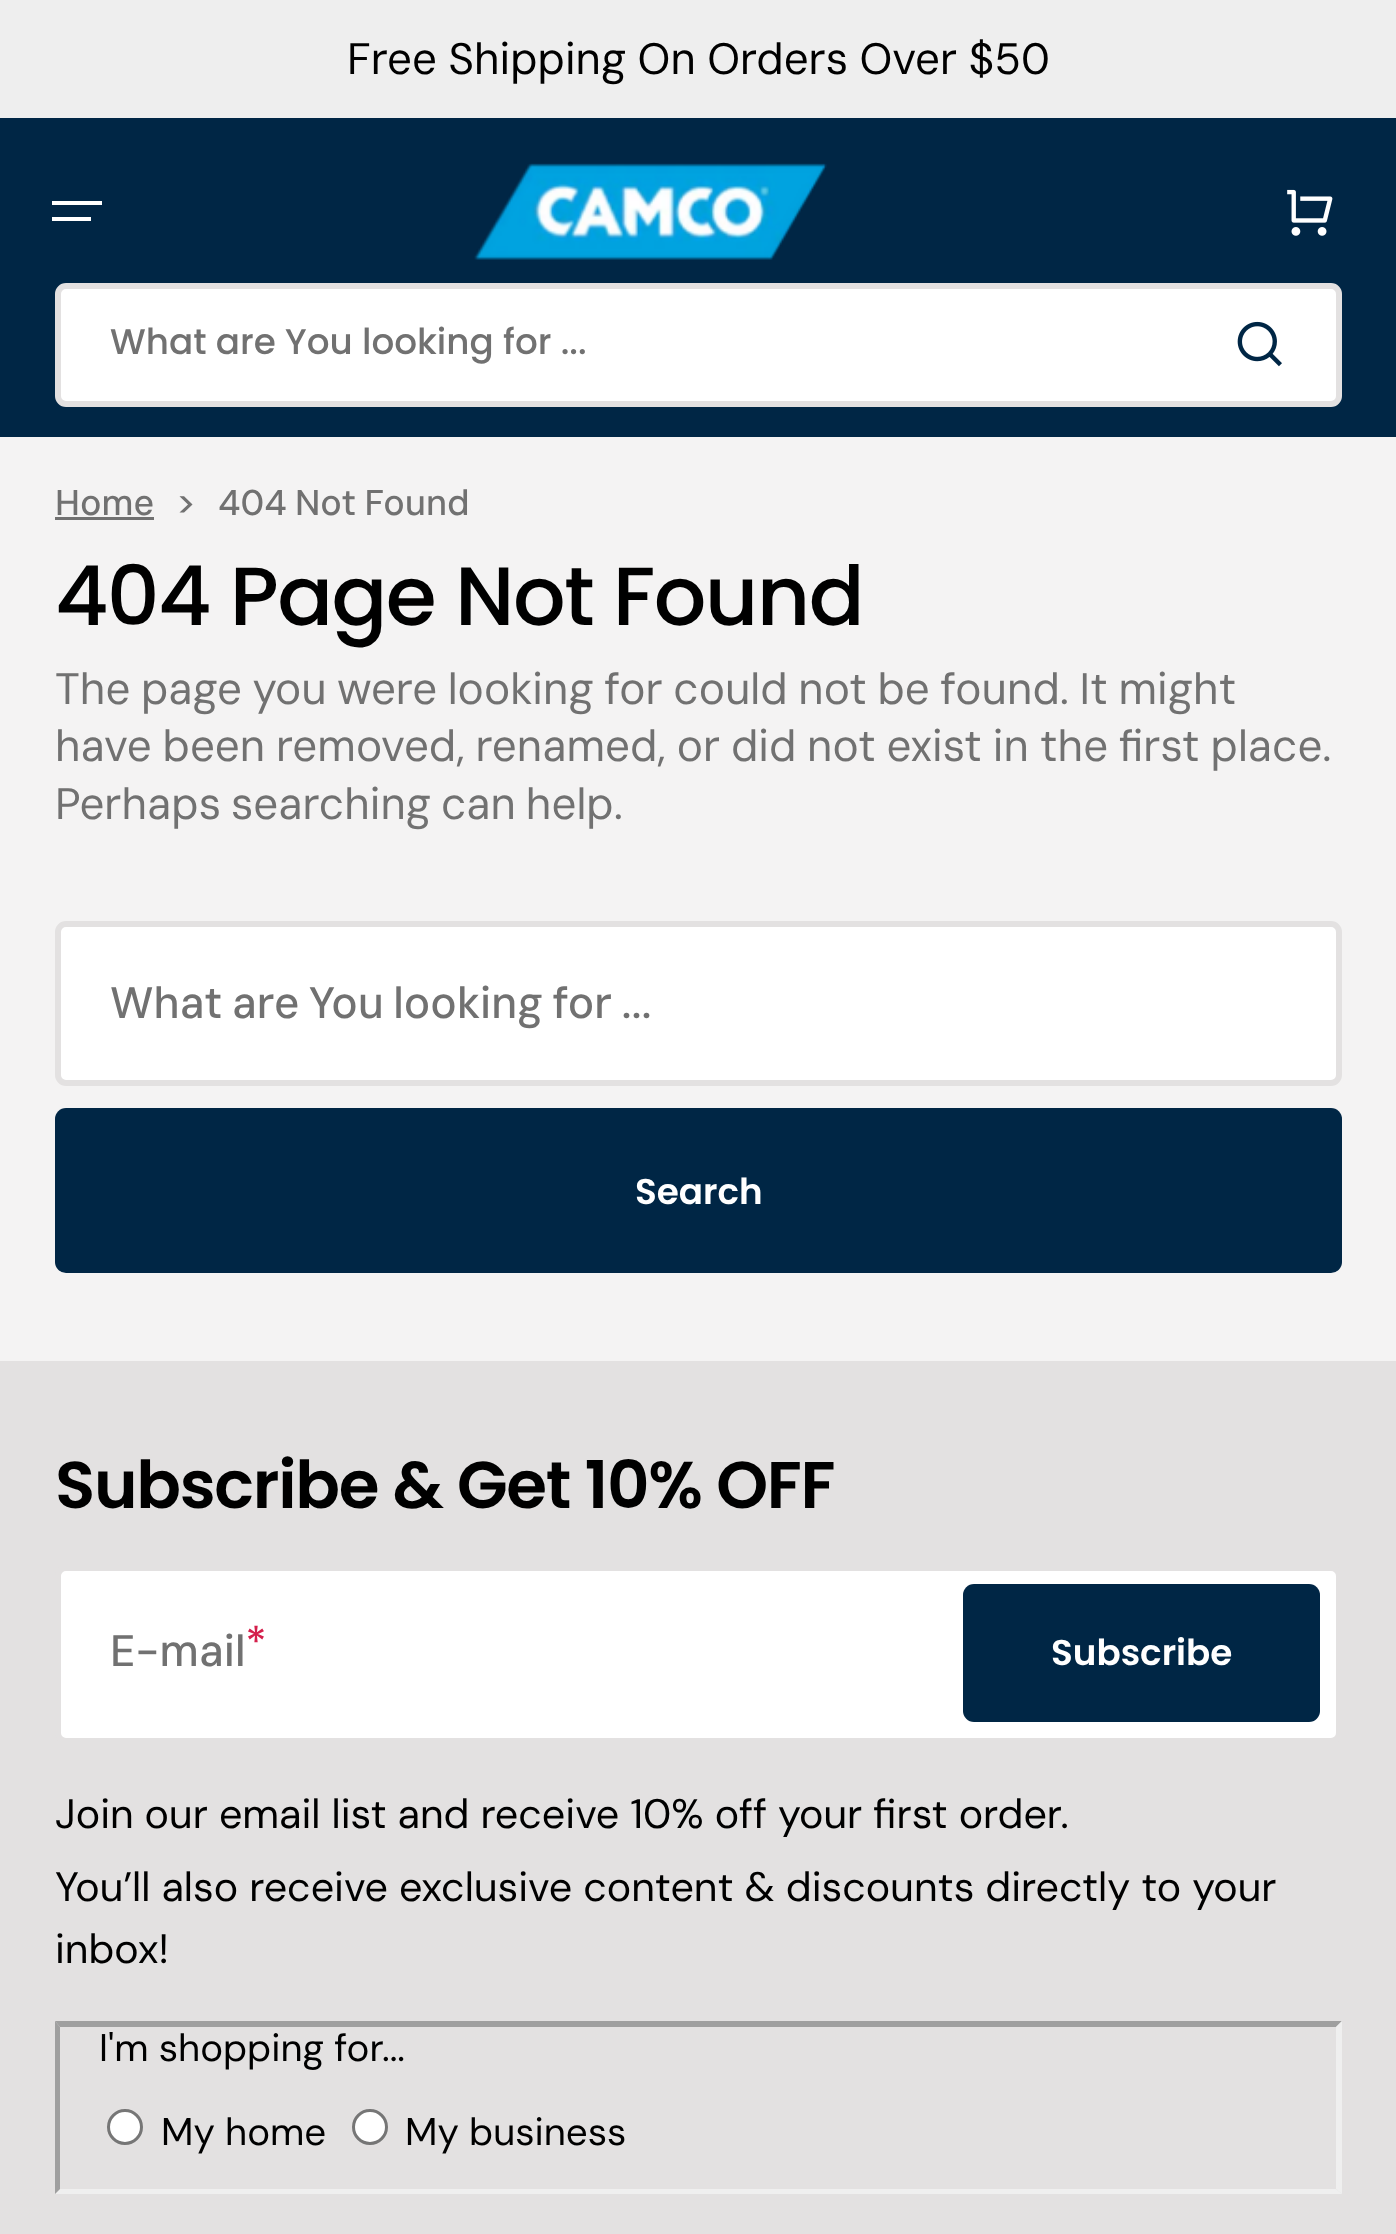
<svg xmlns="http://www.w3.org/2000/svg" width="1396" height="2234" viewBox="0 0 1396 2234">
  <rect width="100%" height="100%" fill="#f4f3f3"/>
  <path d="M0 0h1396v118H0z" fill="#eee"/>
  <path d="M0 118h1396v319H0z" fill="#002645"/>
  <path d="M52 201h50v4H52z" fill="#fff"/>
  <path d="M52 217h39v4H52z" fill="#fff"/>
  <image x="474" y="163" width="353" height="97" href="img/1.png"/>
  <image x="1287" y="189" width="46" height="47" href="img/2.png"/>
  <rect x="58" y="286" width="1281" height="118" rx="8" fill="#fff" stroke="#e3e1e1" stroke-width="6"/>
  <image x="1237" y="321" width="45" height="46" href="img/3.png"/>
  <path d="M55 517h99v3H55z" fill="#717171"/>
  <rect x="58" y="924" width="1281" height="159" rx="8" fill="#fff" stroke="#e3e1e1" stroke-width="6"/>
  <rect x="55" y="1108" width="1287" height="165" rx="11" fill="#002645"/>
  <path d="M0 1361h1396v873H0z" fill="#e3e1e1"/>
  <rect x="58" y="1568" width="1281" height="173" rx="8" fill="#fff" stroke="#e3e1e1" stroke-width="6"/>
  <path d="M55 2021H1342L1336 2027H60Z" fill="#9f9f9f"/>
  <path d="M1342 2021V2194L1336 2189V2027Z" fill="#efefef"/>
  <path d="M1342 2194H55L60 2189H1336Z" fill="#efefef"/>
  <path d="M55 2194V2021L60 2027V2189Z" fill="#9f9f9f"/>
  <circle cx="125" cy="2127" r="16.5" fill="#fff" stroke="#767676" stroke-width="3"/>
  <circle cx="370" cy="2127" r="16.5" fill="#fff" stroke="#767676" stroke-width="3"/>
  <rect x="963" y="1584" width="357" height="138" rx="11" fill="#002645"/>
  <text x="347" y="74" word-spacing="-0.5" font-family="DM Sans" font-size="44" fill="#000">Free Shipping On Orders Over $50</text>
  <text x="110" y="354" font-family="Poppins" font-size="35.75" font-weight="500" fill="#717171">What are You looking for ...</text>
  <g font-family="DM Sans" font-size="35.75" font-weight="500" fill="#717171">
    <text x="55" y="515">Home</text>
    <text x="176" y="515">&gt;</text>
    <text x="218" y="515" word-spacing="-1">404 Not Found</text>
  </g>
  <text x="55" y="625" font-family="Poppins" font-size="82.5" font-weight="500" letter-spacing="-1.6" fill="#000">404 Page Not Found</text>
  <g font-family="DM Sans" font-size="44" fill="#717171">
    <text x="55" y="704" word-spacing="-1.25">The page you were looking for could not be found. It might</text>
    <text x="55" y="761" word-spacing="-1">have been removed, renamed, or did not exist in the first place.</text>
    <text x="55" y="819" word-spacing="-2">Perhaps searching can help.</text>
  </g>
  <text x="110" y="1018" word-spacing="-2" font-family="DM Sans" font-size="44" font-weight="500" fill="#717171">What are You looking for ...</text>
  <text x="635" y="1204" font-family="Poppins" font-size="35.75" font-weight="600" fill="#fff">Search</text>
  <text x="55" y="1508" font-family="Poppins" font-size="66" font-weight="600" letter-spacing="-1.3" fill="#000">Subscribe &amp; Get 10% OFF</text>
  <text x="110" y="1666" font-family="DM Sans" font-size="44" font-weight="500" fill="#717171">E-mail</text>
  <text x="245" y="1658" font-family="DM Sans" font-size="44" font-weight="500" fill="#d41f4b">*</text>
  <g font-family="'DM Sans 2'" font-size="41.25" fill="#000">
    <text x="55" y="1828">Join our email list and receive 10% off your first order.</text>
    <text x="55" y="1901">You’ll also receive exclusive content &amp; discounts directly to your</text>
    <text x="55" y="1963">inbox!</text>
  </g>
  <g font-family="'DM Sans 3'" font-size="38.5" fill="#000">
    <text x="99" y="2061">I'm shopping for...</text>
    <text x="161" y="2145">My home</text>
    <text x="405" y="2145">My business</text>
  </g>
  <text x="1051" y="1665" font-family="Poppins" font-size="35.75" font-weight="600" fill="#fff">Subscribe</text>
</svg>
